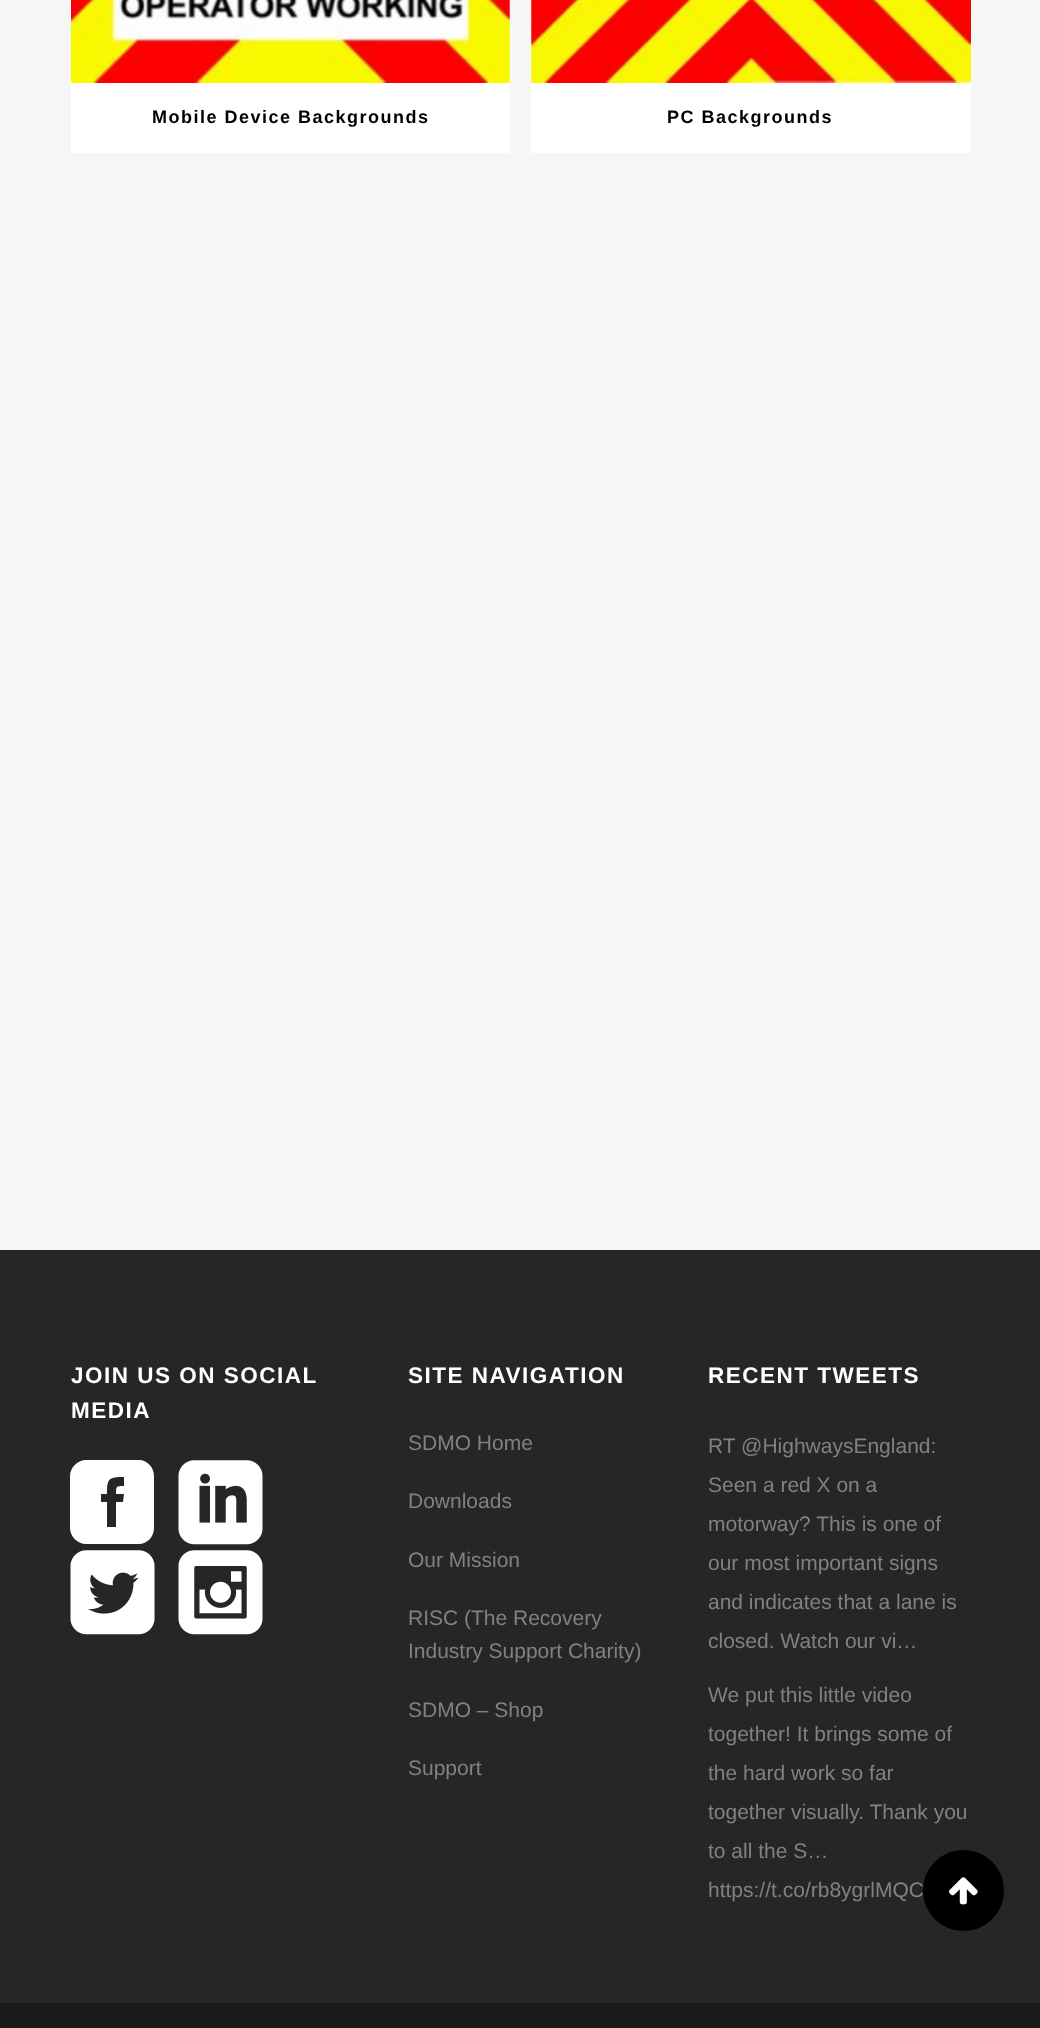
<svg xmlns="http://www.w3.org/2000/svg" width="1040" height="2028" viewBox="0 0 1040 2028">
  <rect width="100%" height="100%" fill="#f6f6f6"/>
  <path d="M71 0h439v153H71z" fill="#fff"/>
  <image x="71" y="0" width="439" height="83" href="img/1.png"/>
  <path d="M531 0h440v153H531z" fill="#fff"/>
  <image x="531" y="0" width="440" height="83" href="img/2.png"/>
  <path d="M0 1250h1040v753H0z" fill="#262626"/>
  <path d="M139 1460C147 1460 154 1467 154 1476V1528C154 1537 147 1544 139 1544H86C78 1544 70 1537 70 1528V1476C70 1467 78 1460 86 1460ZM123 1502L124 1494H116C116 1486 116 1486 124 1486V1477C109 1477 107 1478 107 1494H101V1502H107V1527H116V1502Z" fill="#fff"/>
  <image x="178" y="1460" width="85" height="85" href="img/3.png"/>
  <image x="70" y="1550" width="85" height="85" href="img/4.png"/>
  <image x="178" y="1550" width="85" height="85" href="img/5.png"/>
  <path d="M0 2003h1040v25H0z" fill="#1b1b1b"/>
  <circle cx="963.5" cy="1890.5" r="39.5" fill="#000" stroke="#000" stroke-width="2"/>
  <image x="949" y="1877" width="29" height="28" href="img/6.png"/>
  <g font-family="Liberation Sans" font-size="18" font-weight="bold" letter-spacing="1.5" fill="#000">
    <text x="152" y="123">Mobile Device Backgrounds</text>
    <text x="667" y="123">PC Backgrounds</text>
  </g>
  <g font-family="Liberation Sans" font-size="22.5" font-weight="bold" letter-spacing="1.5" fill="#fff">
    <text x="71" y="1383">JOIN US ON SOCIAL</text>
    <text x="71" y="1418">MEDIA</text>
    <text x="408" y="1383">SITE NAVIGATION</text>
  </g>
  <g font-family="Liberation Sans" font-size="21" fill="#818181">
    <text x="408" y="1450">SDMO Home</text>
    <text x="408" y="1508">Downloads</text>
    <text x="408" y="1567">Our Mission</text>
    <text x="408" y="1625">RISC (The Recovery</text>
    <text x="408" y="1658">Industry Support Charity)</text>
    <text x="408" y="1717">SDMO – Shop</text>
    <text x="408" y="1775">Support</text>
  </g>
  <text x="708" y="1383" font-family="Liberation Sans" font-size="22.5" font-weight="bold" letter-spacing="1.5" fill="#fff">RECENT TWEETS</text>
  <g font-family="Liberation Sans" font-size="21" fill="#818181">
    <text x="708" y="1453">RT @HighwaysEngland:</text>
    <text x="708" y="1492">Seen a red X on a</text>
    <text x="708" y="1531">motorway? This is one of</text>
    <text x="708" y="1570">our most important signs</text>
    <text x="708" y="1609">and indicates that a lane is</text>
    <text x="708" y="1648">closed. Watch our vi…</text>
    <text x="708" y="1702">We put this little video</text>
    <text x="708" y="1741">together! It brings some of</text>
    <text x="708" y="1780">the hard work so far</text>
    <text x="708" y="1819">together visually. Thank you</text>
    <text x="708" y="1858">to all the S…</text>
    <text x="708" y="1897">https://t.co/rb8ygrlMQC</text>
  </g>
</svg>
